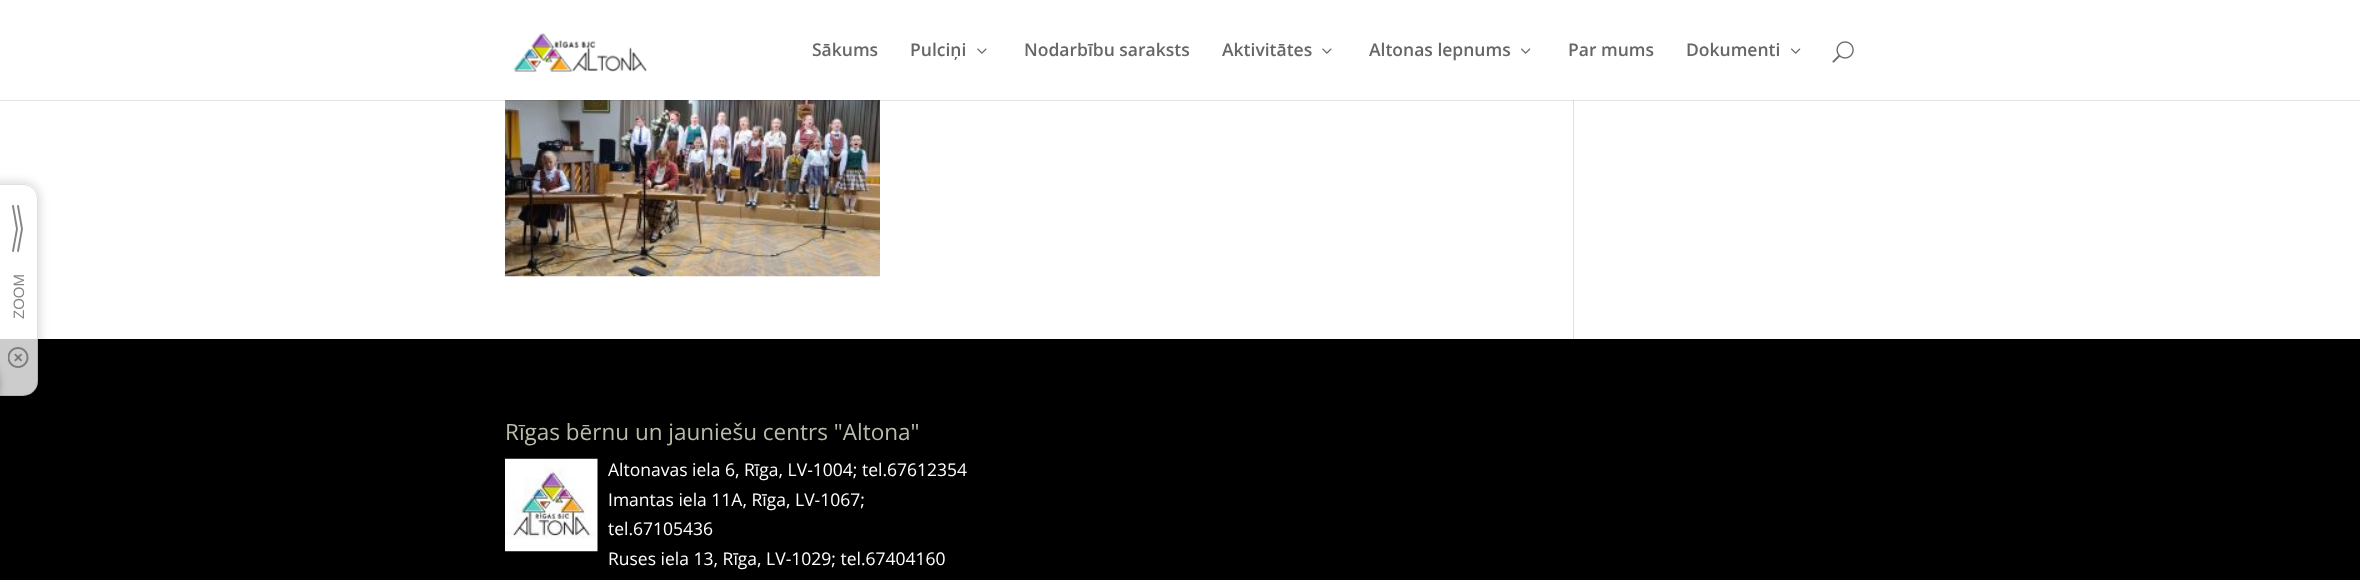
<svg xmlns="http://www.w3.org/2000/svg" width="2360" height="580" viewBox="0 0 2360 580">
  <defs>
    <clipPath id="clip1"><path d="M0 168H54V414H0ZM-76 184H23C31.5 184 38 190.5 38 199V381C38 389.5 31.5 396 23 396H-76C-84.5 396-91 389.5-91 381V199C-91 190.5-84.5 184-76 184Z" clip-rule="evenodd"/></clipPath>
  </defs>
  <rect width="100%" height="100%" fill="#fff"/>
  <path d="M0 339h2360v241H0z" fill="#000"/>
  <g clip-path="url(#clip1)">
    <rect x="-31" y="181" width="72" height="220" rx="19" fill="#0000001f" filter="blur(4px)"/>
  </g>
  <rect x="-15" y="184" width="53" height="212" rx="15" fill="#ffffffcc"/>
  <rect x="-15.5" y="184.5" width="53" height="211" rx="14.5" fill="none" stroke="#0000001f"/>
  <path d="M18 206L22 229M22 229L18 251M17 229L13 206M13 251L17 229" fill="none" stroke="#858585" stroke-width="1.9" stroke-linecap="round"/>
  <rect x="-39" y="359" width="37" height="50" rx="25" fill="#00000063" filter="blur(4.5px)"/>
  <image x="8" y="347" width="21" height="21" href="img/1.png"/>
  <image x="505" y="100" width="375" height="177" href="img/6.png"/>
  <path d="M1573 100h1v239H1573z" fill="#e2e2e2"/>
  <path d="M0 100h2360v1H0z" fill="#0000001a"/>
  <image x="513" y="33" width="134" height="39" href="img/2.png"/>
  <image x="977" y="48" width="10" height="6" href="img/3.png"/>
  <image x="1322" y="48" width="10" height="6" href="img/3.png"/>
  <image x="1521" y="48" width="10" height="6" href="img/4.png"/>
  <image x="1791" y="48" width="10" height="6" href="img/4.png"/>
  <image x="1832" y="41" width="22" height="22" href="img/5.png"/>
  <image x="505" y="458" width="93" height="94" href="img/7.png"/>
  <text x="24" y="319" transform="rotate(-90 24 319)" font-family="Liberation Sans" font-size="15" fill="#858585">ZOOM</text>
  <g font-family="Open Sans" font-size="17.5" font-weight="600" fill="#666">
    <text x="812" y="56">Sākums</text>
    <text x="910" y="56">Pulciņi</text>
    <text x="1024" y="56">Nodarbību saraksts</text>
    <text x="1222" y="56">Aktivitātes</text>
    <text x="1369" y="56">Altonas lepnums</text>
    <text x="1568" y="56">Par mums</text>
    <text x="1686" y="56">Dokumenti</text>
  </g>
  <text x="505" y="440" font-family="Open Sans" font-size="22.5" fill="#bbbbab">Rīgas bērnu un jauniešu centrs "Altona"</text>
  <g font-family="Open Sans" font-size="17.5" fill="#fff">
    <text x="608" y="476">Altonavas iela 6, Rīga, LV-1004; tel.67612354</text>
    <text x="608" y="506">Imantas iela 11A, Rīga, LV-1067;</text>
    <text x="608" y="535">tel.67105436</text>
    <text x="608" y="565">Ruses iela 13, Rīga, LV-1029; tel.67404160</text>
  </g>
</svg>
